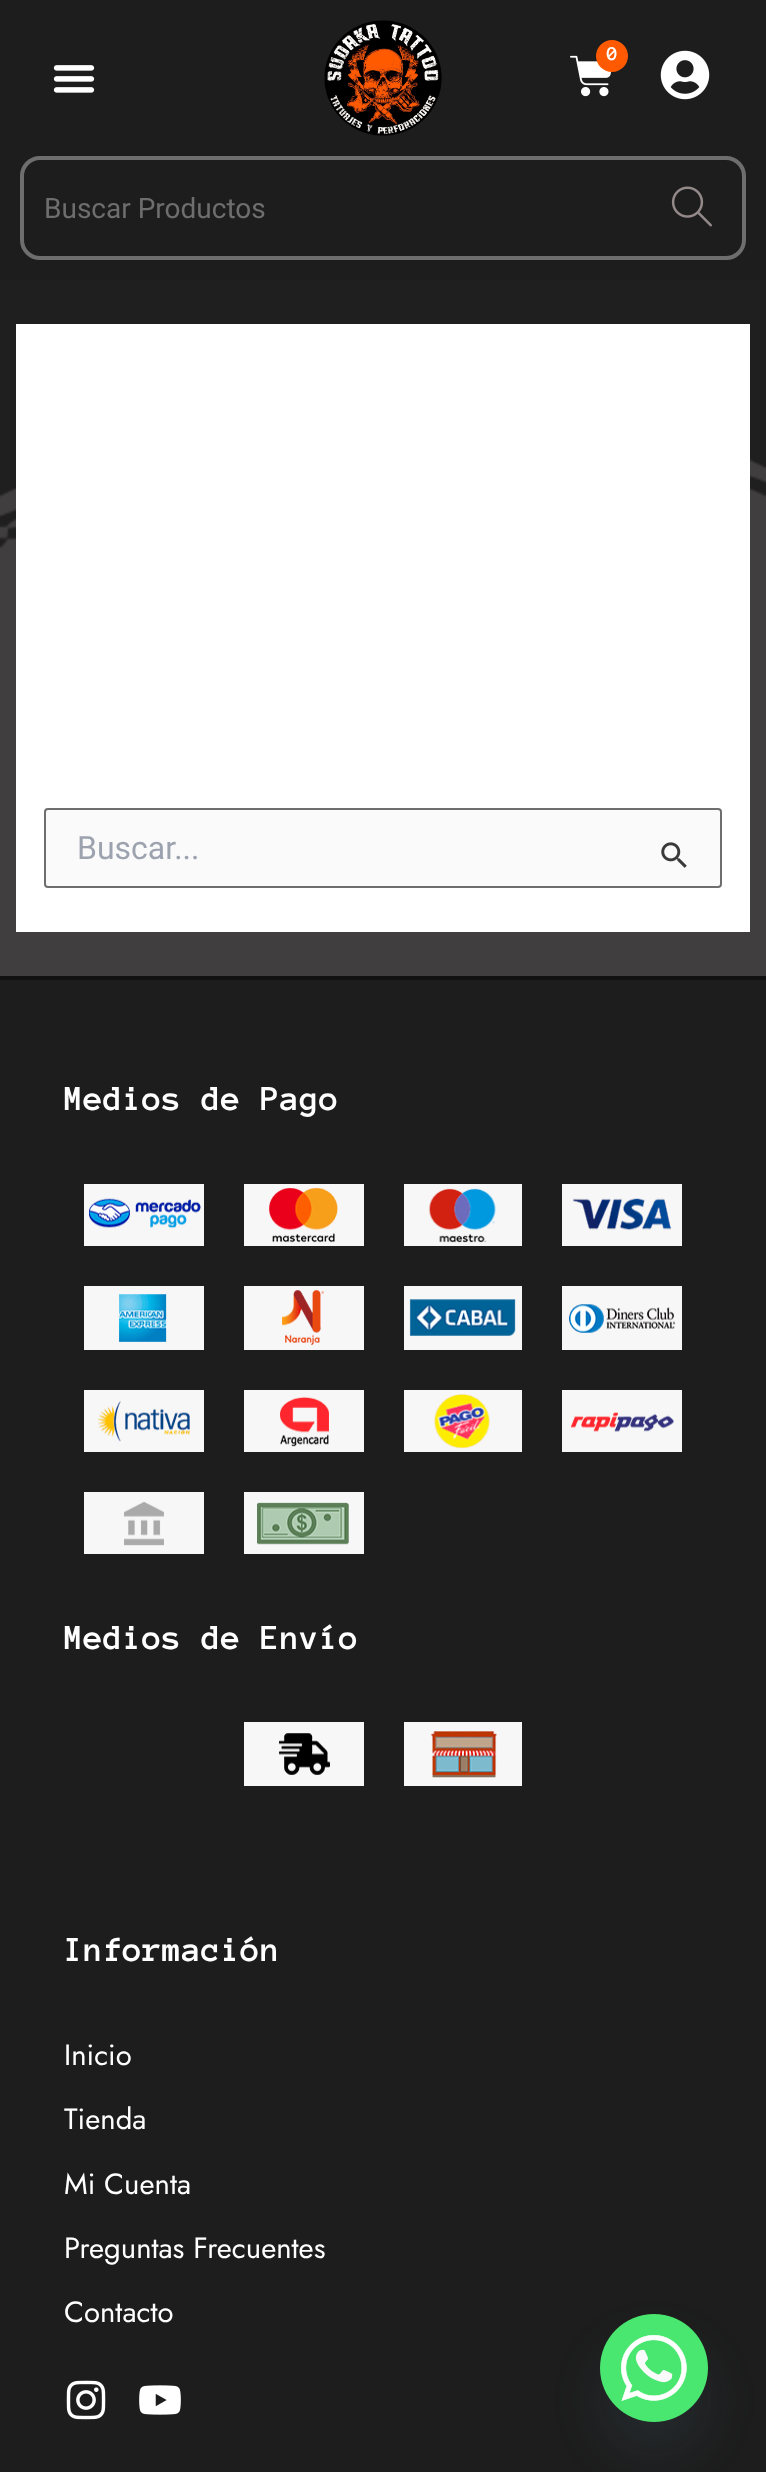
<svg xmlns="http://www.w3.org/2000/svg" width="766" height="2472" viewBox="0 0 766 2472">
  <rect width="100%" height="100%" fill="#403e3f"/>
  <image x="0" y="280" width="766" height="269" href="img/1.png"/>
  <path d="M0 0h766v280H0z" fill="#1d1d1d"/>
  <image x="324" y="20" width="118" height="116" href="img/2.png"/>
  <image x="570" y="55" width="42" height="42" href="img/3.png"/>
  <circle cx="612" cy="56" r="16" fill="#ff5a01"/>
  <image x="660" y="50" width="50" height="50" href="img/4.png"/>
  <image x="53" y="65" width="42" height="28" href="img/5.png"/>
  <rect x="22" y="158" width="722" height="100" rx="18" fill="none" stroke="#6e6e6e" stroke-width="4"/>
  <image x="671" y="186" width="41" height="41" href="img/6.png"/>
  <path d="M16 324h734v608H16z" fill="#fff"/>
  <rect x="45" y="809" width="676" height="78" rx="3" fill="#fafafa" stroke="#6e6e6e" stroke-width="2"/>
  <image x="661" y="842" width="26" height="26" href="img/7.png"/>
  <path d="M0 980h766v1492H0z" fill="#1d1d1d"/>
  <path d="M0 976h766v4H0z" fill="#111"/>
  <image x="84" y="1184" width="120" height="62" href="img/8.png"/>
  <image x="244" y="1184" width="120" height="62" href="img/9.png"/>
  <image x="404" y="1184" width="118" height="62" href="img/10.png"/>
  <image x="562" y="1184" width="120" height="62" href="img/11.png"/>
  <image x="84" y="1286" width="120" height="64" href="img/12.png"/>
  <image x="244" y="1286" width="120" height="64" href="img/13.png"/>
  <image x="404" y="1286" width="118" height="64" href="img/14.png"/>
  <image x="562" y="1286" width="120" height="64" href="img/15.png"/>
  <image x="84" y="1390" width="120" height="62" href="img/16.png"/>
  <image x="244" y="1390" width="120" height="62" href="img/17.png"/>
  <image x="404" y="1390" width="118" height="62" href="img/18.png"/>
  <image x="562" y="1390" width="120" height="62" href="img/19.png"/>
  <image x="84" y="1492" width="120" height="62" href="img/20.png"/>
  <image x="244" y="1492" width="120" height="62" href="img/21.png"/>
  <image x="244" y="1722" width="120" height="64" href="img/22.png"/>
  <image x="404" y="1722" width="118" height="64" href="img/23.png"/>
  <image x="66" y="2380" width="40" height="40" href="img/24.png"/>
  <image x="139" y="2385" width="42" height="30" href="img/25.png"/>
  <rect x="600" y="2346" width="108" height="108" rx="54" fill="#49687e29" filter="blur(24px)"/>
  <image x="600" y="2314" width="108" height="108" href="img/26.png"/>
  <text x="607" y="60" font-family="Anonymous Pro" font-size="20" font-weight="bold" fill="#fff">0</text>
  <text x="44" y="218" font-family="Roboto" font-size="28" fill="#6e6e6e">Buscar Productos</text>
  <text x="77" y="859" font-family="Roboto" font-size="32" fill="#9ca3af">Buscar...</text>
  <g font-family="Anonymous Pro" font-size="36" font-weight="bold" fill="#fff">
    <text x="64" y="1110">Medios de Pago</text>
    <text x="64" y="1649">Medios de Envío</text>
    <text x="64" y="1961">Información</text>
  </g>
  <g font-family="Jost" font-size="29.25" fill="#fff">
    <text x="64" y="2065">Inicio</text>
    <text x="64" y="2129">Tienda</text>
    <text x="64" y="2194">Mi Cuenta</text>
    <text x="64" y="2258">Preguntas Frecuentes</text>
    <text x="64" y="2322">Contacto</text>
  </g>
</svg>
